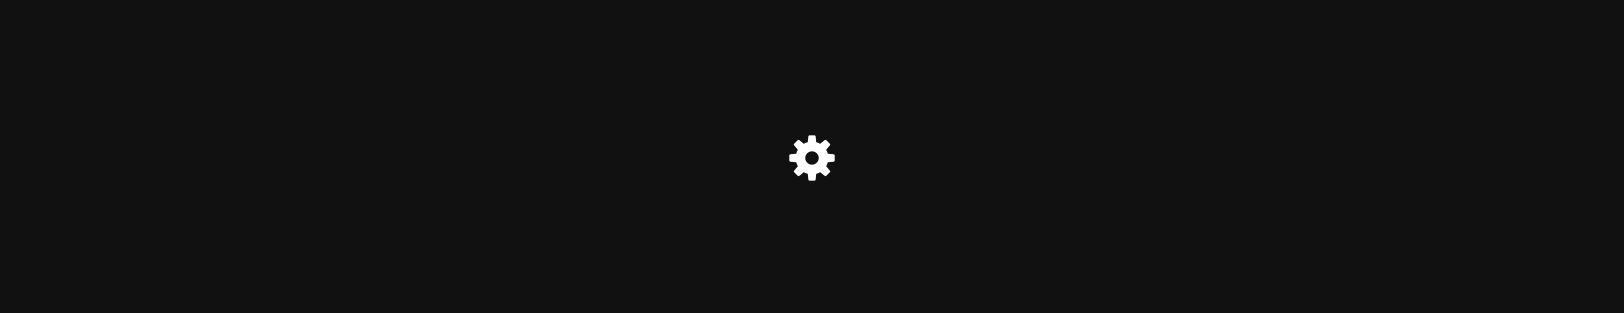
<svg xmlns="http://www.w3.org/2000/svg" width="1624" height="313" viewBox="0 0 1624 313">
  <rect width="100%" height="100%" fill="#111"/>
  <image x="789" y="135" width="46" height="46" href="img/1.png"/>
</svg>
